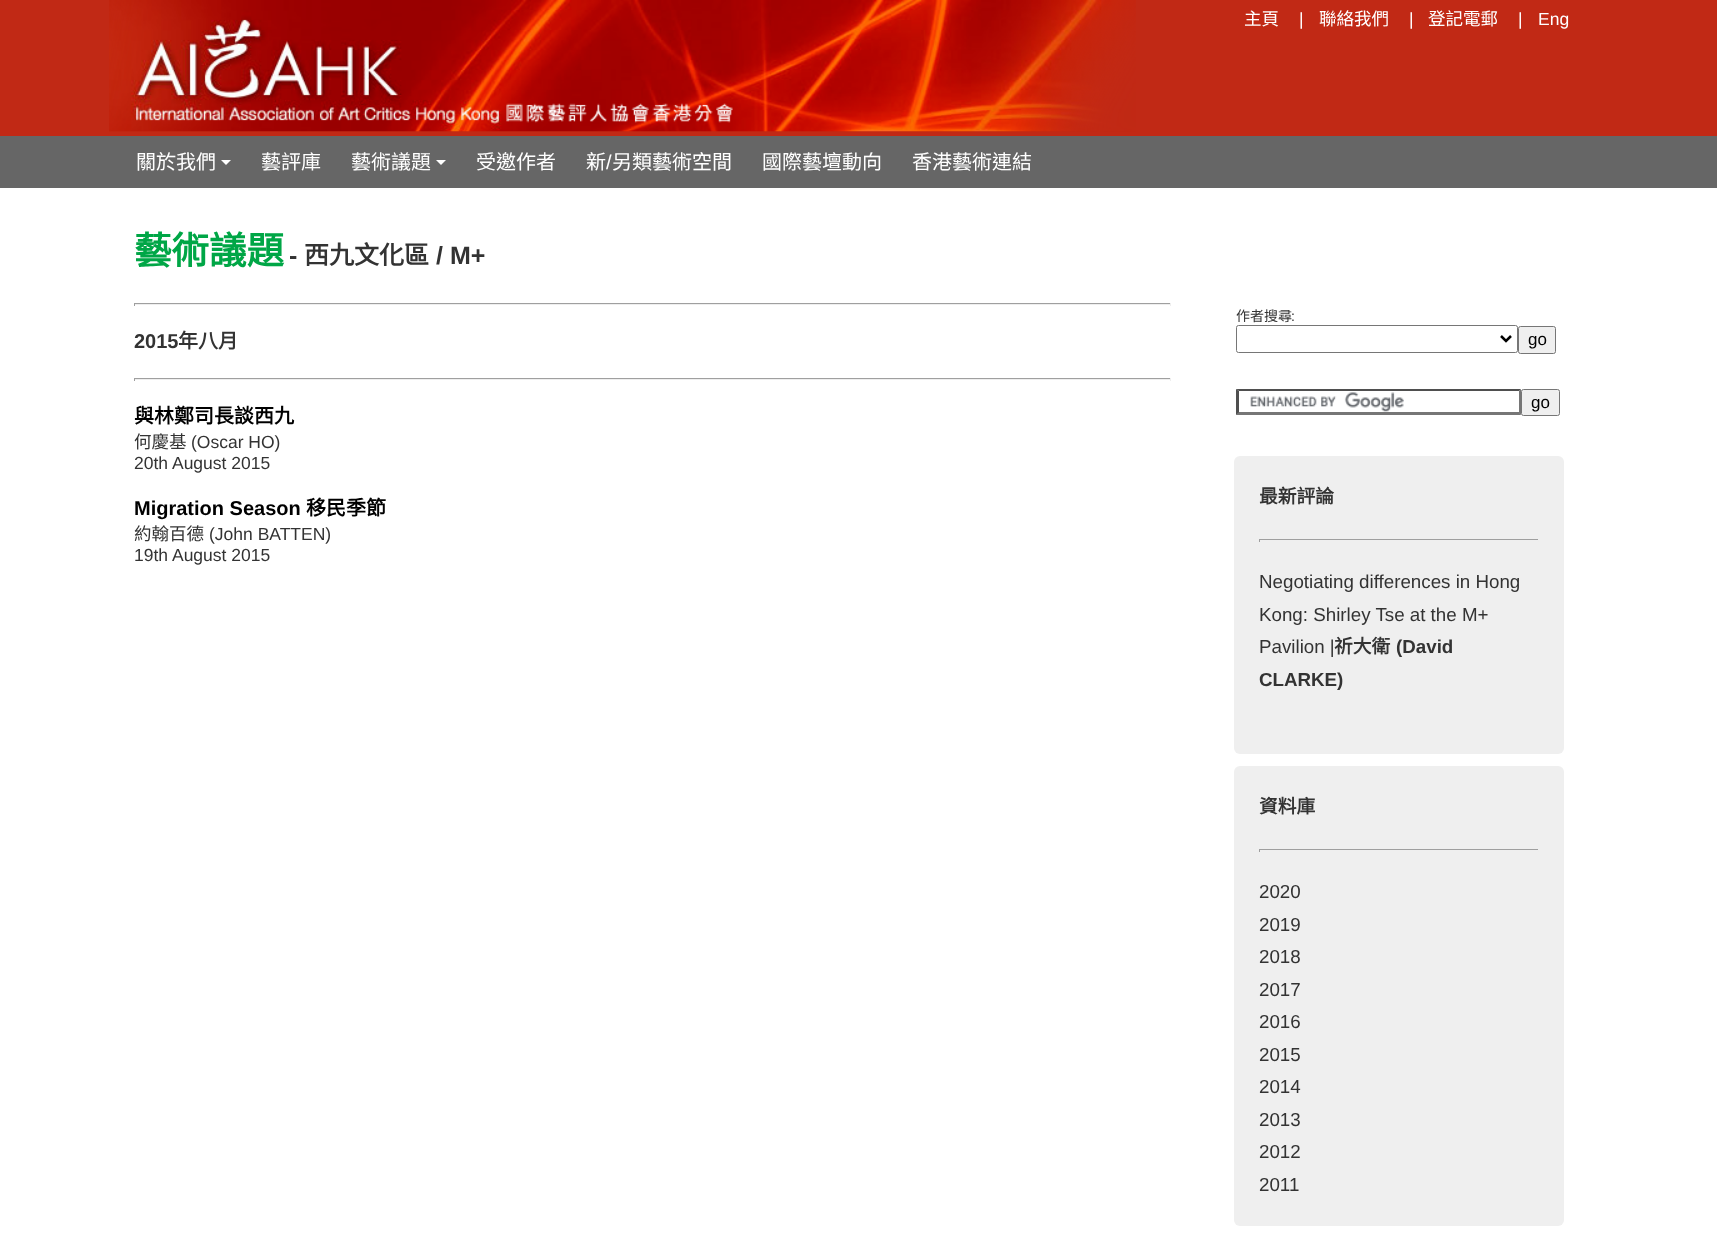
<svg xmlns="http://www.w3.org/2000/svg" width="1717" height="1234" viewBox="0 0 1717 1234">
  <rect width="100%" height="100%" fill="#fff"/>
  <path d="M0 0h1717v136H0z" fill="#c12915"/>
  <image x="109" y="0" width="1027" height="132" href="img/1.png"/>
  <path d="M0 136h1717v52H0z" fill="#666"/>
  <path d="M221 160H231L226 165Z" fill="#fff"/>
  <path d="M436 160H446L441 165Z" fill="#fff"/>
  <path d="M134 303h1037v1H134z" fill="#9f9f9f"/>
  <path d="M1170 303h1v3H1170z" fill="#eee"/>
  <path d="M134 304h1037v1H134z" fill="#eee"/>
  <path d="M134 303h1v3H134z" fill="#9f9f9f"/>
  <path d="M134 378h1037v1H134z" fill="#9f9f9f"/>
  <path d="M1170 378h1v3H1170z" fill="#eee"/>
  <path d="M134 379h1037v1H134z" fill="#eee"/>
  <path d="M134 378h1v3H134z" fill="#9f9f9f"/>
  <rect x="1236.5" y="325.5" width="281" height="27" rx="2" fill="none" stroke="#767676"/>
  <path d="M1501 336L1506 341L1511 336" fill="none" stroke="#000" stroke-width="2.5"/>
  <rect x="1518.5" y="326.5" width="37" height="27" rx="2" fill="#efefef" stroke="#767676"/>
  <image x="1250" y="392" width="154" height="20" href="img/2.png"/>
  <path d="M1236 389H1521L1519 391H1239Z" fill="#4f4f4f"/>
  <path d="M1521 389V415L1519 412.5V391Z" fill="#767676"/>
  <path d="M1521 415H1236L1239 412H1519Z" fill="#767676"/>
  <path d="M1236 415V389L1239 391V412.5Z" fill="#4f4f4f"/>
  <rect x="1521.5" y="389.5" width="38" height="26" rx="2" fill="#efefef" stroke="#767676"/>
  <rect x="1234" y="456" width="330" height="298" rx="6" fill="#efefef"/>
  <path d="M1259 539h280v1H1259z" fill="#9f9f9f"/>
  <path d="M1538 539h1v3H1538z" fill="#eee"/>
  <path d="M1259 539h1v3H1259z" fill="#9f9f9f"/>
  <rect x="1234" y="766" width="330" height="460" rx="6" fill="#efefef"/>
  <path d="M1259 849h280v1H1259z" fill="#9f9f9f"/>
  <path d="M1538 849h1v3H1538z" fill="#eee"/>
  <path d="M1259 849h1v3H1259z" fill="#9f9f9f"/>
  <text x="1244" y="25" font-family="Noto Sans CJK HK" font-size="17.5" fill="#fff">主頁</text>
  <text x="1299" y="25" font-family="Liberation Sans" font-size="17.5" fill="#fff">|</text>
  <text x="1319" y="25" font-family="Noto Sans CJK HK" font-size="17.5" fill="#fff">聯絡我們</text>
  <text x="1409" y="25" font-family="Liberation Sans" font-size="17.5" fill="#fff">|</text>
  <text x="1428" y="25" font-family="Noto Sans CJK HK" font-size="17.5" fill="#fff">登記電郵</text>
  <g font-family="Liberation Sans" font-size="17.5" fill="#fff">
    <text x="1518" y="25">|</text>
    <text x="1538" y="25">Eng</text>
  </g>
  <g font-family="Noto Sans CJK HK" font-size="20" fill="#fff">
    <text x="136" y="169">關於我們</text>
    <text x="261" y="169">藝評庫</text>
    <text x="351" y="169">藝術議題</text>
    <text x="476" y="169">受邀作者</text>
    <text x="586" y="169">新</text>
  </g>
  <text x="606" y="169" font-family="Liberation Sans" font-size="20" fill="#fff">/</text>
  <g font-family="Noto Sans CJK HK" font-size="20" fill="#fff">
    <text x="612" y="169">另類藝術空間</text>
    <text x="762" y="169">國際藝壇動向</text>
    <text x="912" y="169">香港藝術連結</text>
  </g>
  <text x="134" y="264" font-family="Noto Sans CJK HK" font-size="37.5" font-weight="bold" fill="#00a646">藝術議題</text>
  <text x="289" y="264" font-family="Liberation Sans" font-size="25" font-weight="bold" fill="#333">-</text>
  <text x="304" y="264" font-family="Noto Sans CJK HK" font-size="25" font-weight="bold" fill="#333">西九文化區</text>
  <text x="436" y="264" font-family="Liberation Sans" font-size="25" font-weight="bold" fill="#333">/ M+</text>
  <text x="134" y="348" font-family="Liberation Sans" font-size="20" font-weight="bold" fill="#333">2015</text>
  <text x="178" y="348" font-family="Noto Sans CJK HK" font-size="20" font-weight="bold" fill="#333">年八月</text>
  <text x="134" y="423" font-family="Noto Sans CJK HK" font-size="20" font-weight="bold" fill="#000">與林鄭司長談西九</text>
  <text x="134" y="448" font-family="Noto Sans CJK HK" font-size="17.5" fill="#333">何慶基</text>
  <g font-family="Liberation Sans" font-size="17.5" fill="#333">
    <text x="191" y="448">(Oscar HO)</text>
    <text x="134" y="469">20th August 2015</text>
  </g>
  <text x="134" y="515" font-family="Liberation Sans" font-size="20" font-weight="bold" fill="#000">Migration Season</text>
  <text x="306" y="515" font-family="Noto Sans CJK HK" font-size="20" font-weight="bold" fill="#000">移民季節</text>
  <text x="134" y="540" font-family="Noto Sans CJK HK" font-size="17.5" fill="#333">約翰百德</text>
  <g font-family="Liberation Sans" font-size="17.5" fill="#333">
    <text x="209" y="540">(John BATTEN)</text>
    <text x="134" y="561">19th August 2015</text>
  </g>
  <text x="1236" y="321" font-family="Noto Sans CJK HK" font-size="14" fill="#333">作者搜尋</text>
  <text x="1291" y="321" font-family="Liberation Sans" font-size="14" fill="#333">:</text>
  <g font-family="Liberation Sans" font-size="17" fill="#000">
    <text x="1528" y="345">go</text>
    <text x="1531" y="408">go</text>
  </g>
  <text x="1259" y="503" font-family="Noto Sans CJK HK" font-size="18.75" font-weight="bold" fill="#333">最新評論</text>
  <g font-family="Liberation Sans" font-size="18.75" fill="#333">
    <text x="1259" y="588">Negotiating differences in Hong</text>
    <text x="1259" y="621">Kong: Shirley Tse at the M+</text>
    <text x="1259" y="653">Pavilion |</text>
  </g>
  <text x="1334" y="653" font-family="Noto Sans CJK HK" font-size="18.75" font-weight="bold" fill="#333">祈大衛</text>
  <g font-family="Liberation Sans" font-size="18.75" font-weight="bold" fill="#333">
    <text x="1396" y="653">(David</text>
    <text x="1259" y="686">CLARKE)</text>
  </g>
  <text x="1259" y="813" font-family="Noto Sans CJK HK" font-size="18.75" font-weight="bold" fill="#333">資料庫</text>
  <g font-family="Liberation Sans" font-size="18.75" fill="#333">
    <text x="1259" y="898">2020</text>
    <text x="1259" y="931">2019</text>
    <text x="1259" y="963">2018</text>
    <text x="1259" y="996">2017</text>
    <text x="1259" y="1028">2016</text>
    <text x="1259" y="1061">2015</text>
    <text x="1259" y="1093">2014</text>
    <text x="1259" y="1126">2013</text>
    <text x="1259" y="1158">2012</text>
    <text x="1259" y="1191">2011</text>
  </g>
</svg>
